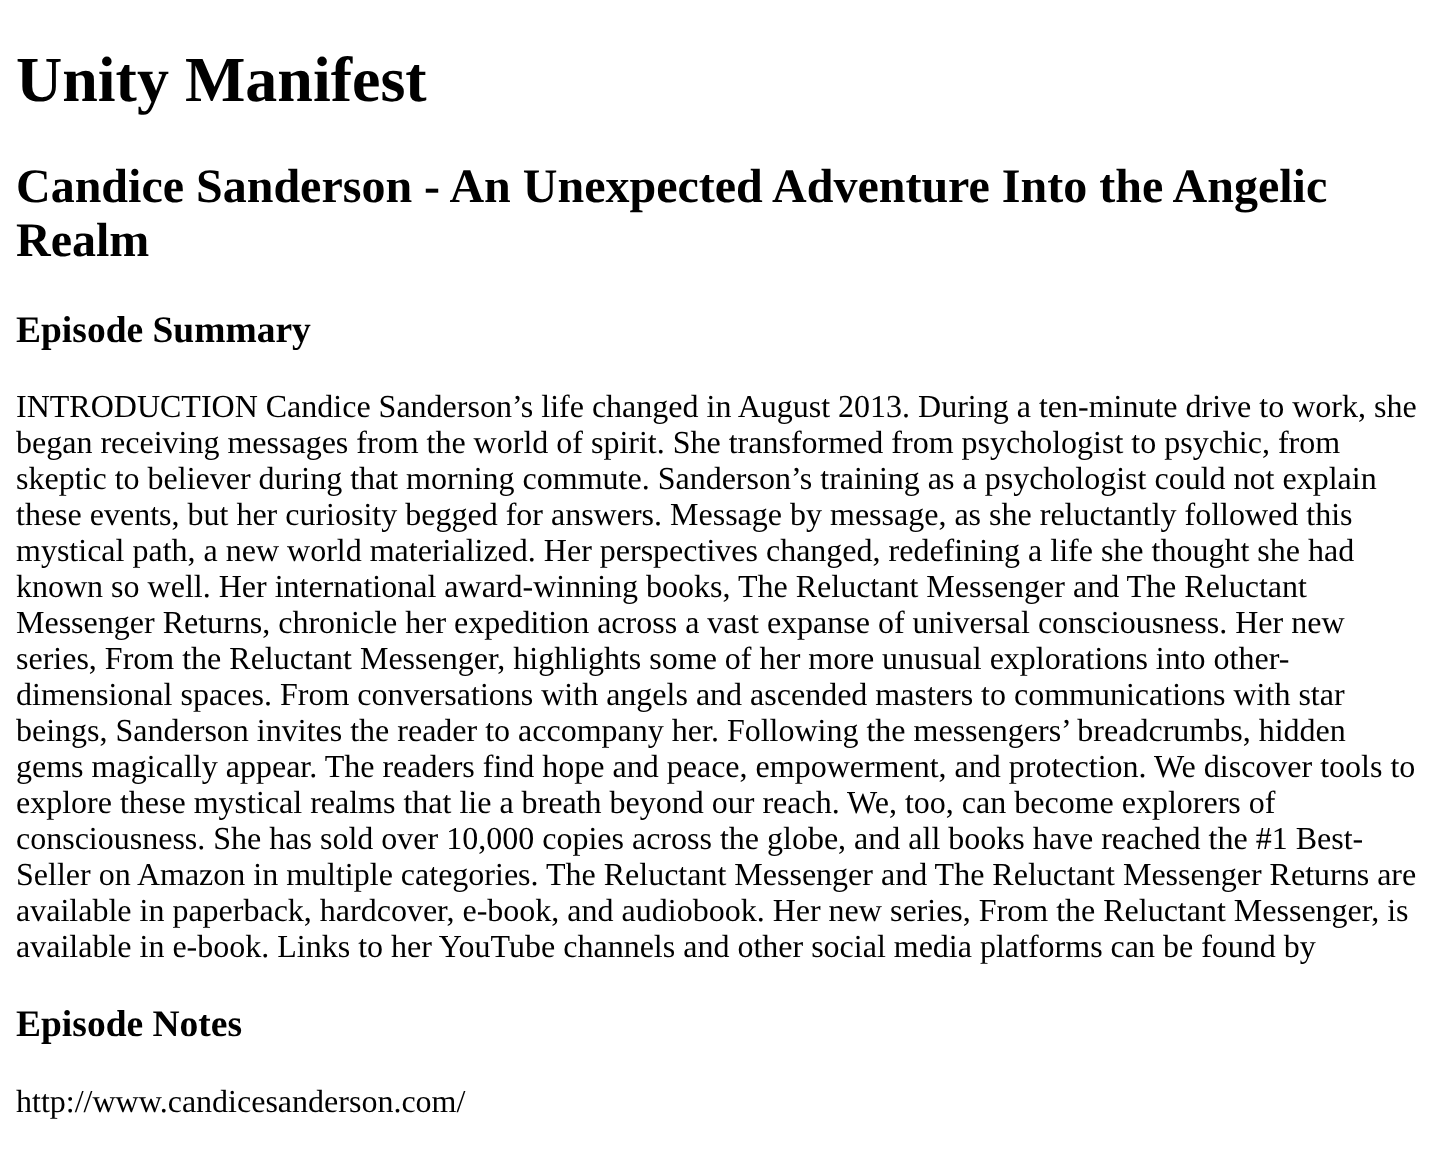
<svg xmlns="http://www.w3.org/2000/svg" width="1434" height="1162" viewBox="0 0 1434 1162">
  <rect width="100%" height="100%" fill="#fff"/>
  <text x="16" y="101" font-family="Liberation Serif" font-size="64" font-weight="bold" fill="#000">Unity Manifest</text>
  <g font-family="Liberation Serif" font-size="48" font-weight="bold" fill="#000">
    <text x="16" y="202">Candice Sanderson - An Unexpected Adventure Into the Angelic</text>
    <text x="16" y="256">Realm</text>
  </g>
  <text x="16" y="342" font-family="Liberation Serif" font-size="37.5" font-weight="bold" fill="#000">Episode Summary</text>
  <g font-family="Liberation Serif" font-size="32" fill="#000">
    <text x="16" y="417">INTRODUCTION Candice Sanderson’s life changed in August 2013. During a ten-minute drive to work, she</text>
    <text x="16" y="453">began receiving messages from the world of spirit. She transformed from psychologist to psychic, from</text>
    <text x="16" y="489">skeptic to believer during that morning commute. Sanderson’s training as a psychologist could not explain</text>
    <text x="16" y="525">these events, but her curiosity begged for answers. Message by message, as she reluctantly followed this</text>
    <text x="16" y="561">mystical path, a new world materialized. Her perspectives changed, redefining a life she thought she had</text>
    <text x="16" y="597">known so well. Her international award-winning books, The Reluctant Messenger and The Reluctant</text>
    <text x="16" y="633">Messenger Returns, chronicle her expedition across a vast expanse of universal consciousness. Her new</text>
    <text x="16" y="669">series, From the Reluctant Messenger, highlights some of her more unusual explorations into other-</text>
    <text x="16" y="705">dimensional spaces. From conversations with angels and ascended masters to communications with star</text>
    <text x="16" y="741">beings, Sanderson invites the reader to accompany her. Following the messengers’ breadcrumbs, hidden</text>
    <text x="16" y="777">gems magically appear. The readers find hope and peace, empowerment, and protection. We discover tools to</text>
    <text x="16" y="813">explore these mystical realms that lie a breath beyond our reach. We, too, can become explorers of</text>
    <text x="16" y="849">consciousness. She has sold over 10,000 copies across the globe, and all books have reached the #1 Best-</text>
    <text x="16" y="885">Seller on Amazon in multiple categories. The Reluctant Messenger and The Reluctant Messenger Returns are</text>
    <text x="16" y="921">available in paperback, hardcover, e-book, and audiobook. Her new series, From the Reluctant Messenger, is</text>
    <text x="16" y="957">available in e-book. Links to her YouTube channels and other social media platforms can be found by</text>
  </g>
  <text x="16" y="1036" font-family="Liberation Serif" font-size="37.5" font-weight="bold" fill="#000">Episode Notes</text>
  <text x="16" y="1112" font-family="Liberation Serif" font-size="32" fill="#000">http://www.candicesanderson.com/</text>
</svg>
